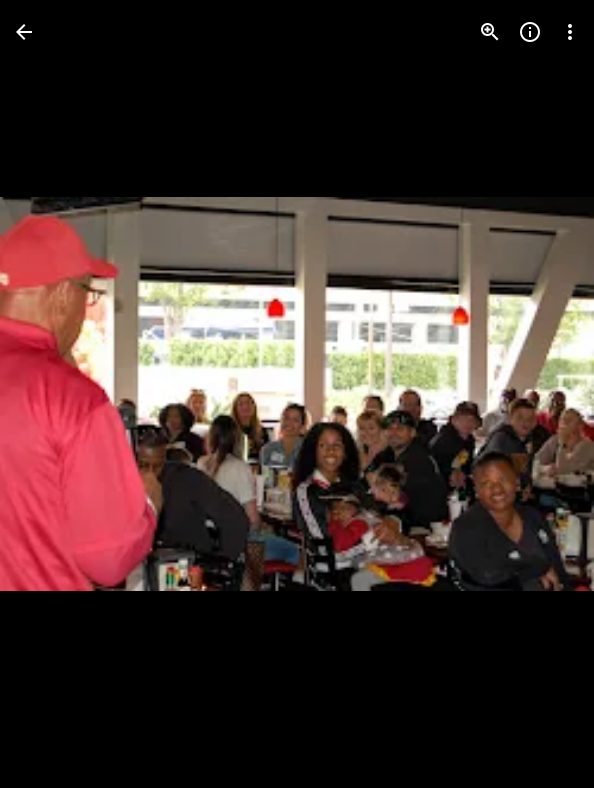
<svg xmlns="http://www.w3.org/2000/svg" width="594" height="788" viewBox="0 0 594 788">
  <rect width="100%" height="100%" fill="#000"/>
  <image x="16" y="24" width="16" height="16" href="img/1.png"/>
  <image x="481" y="23" width="18" height="18" href="img/2.png"/>
  <image x="520" y="22" width="20" height="20" href="img/3.png"/>
  <image x="568" y="24" width="4" height="16" href="img/4.png"/>
  <image x="0" y="197" width="594" height="394" href="img/5.png"/>
</svg>
